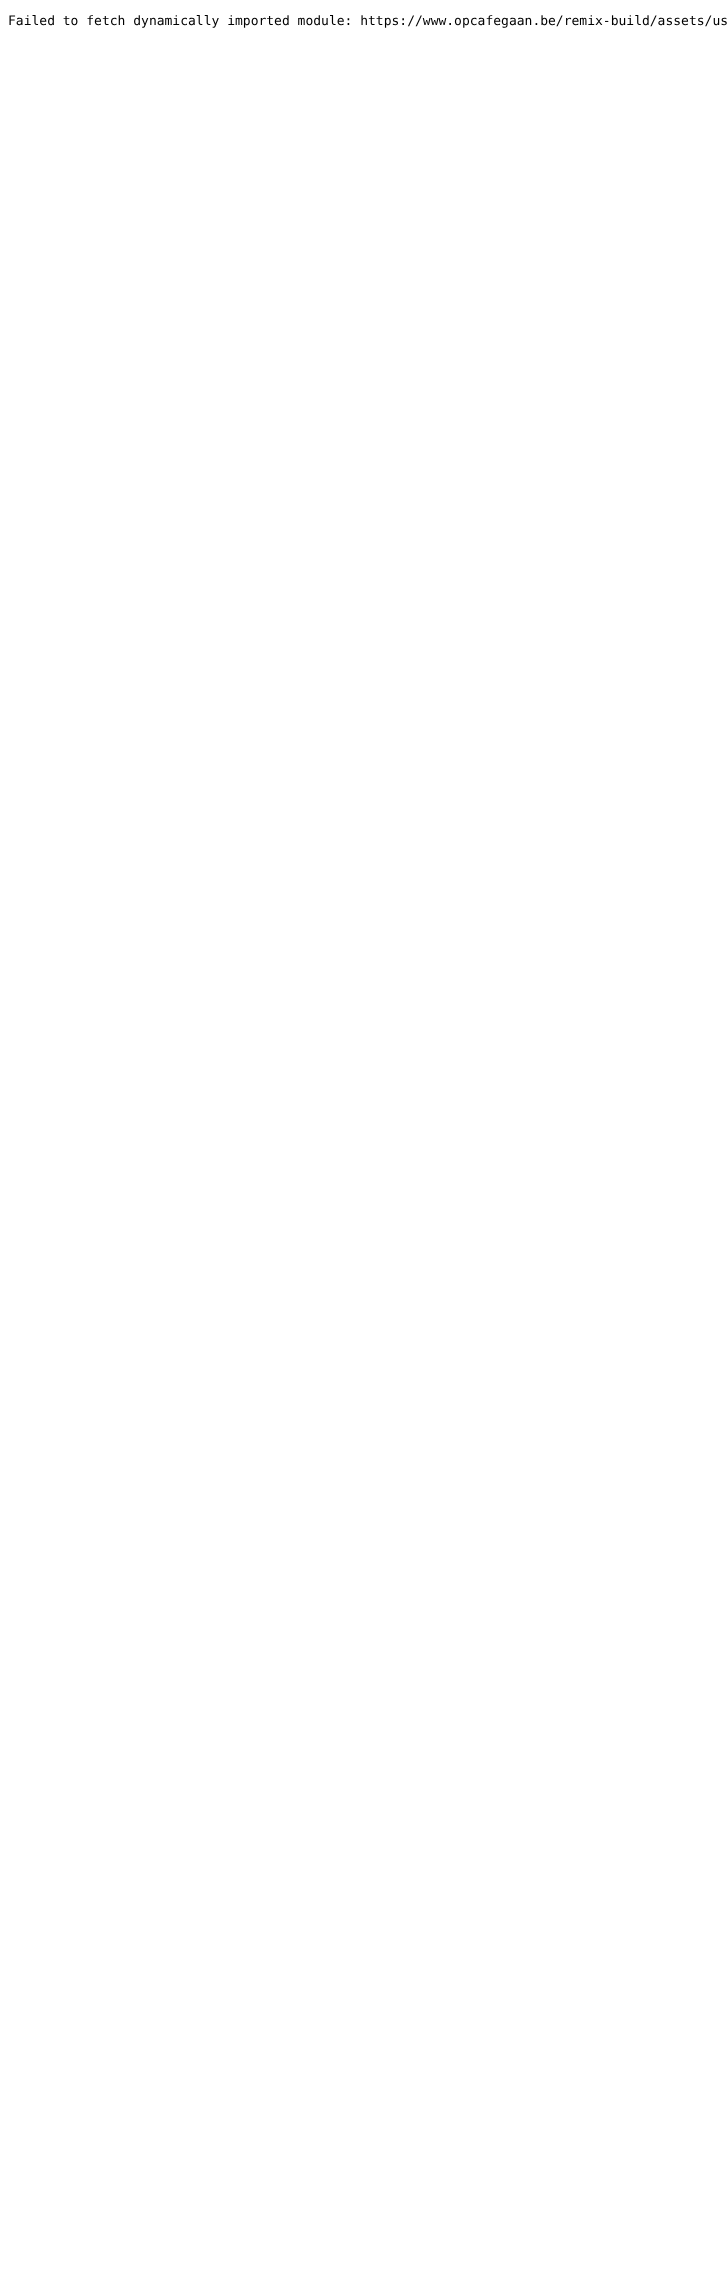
<svg xmlns="http://www.w3.org/2000/svg" width="728" height="2277" viewBox="0 0 728 2277">
  <rect width="100%" height="100%" fill="#fff"/>
  <text x="8" y="25" font-family="DejaVu Sans Mono" font-size="13" fill="#000">Failed to fetch dynamically imported module: https://www.opcafegaan.be/remix-build/assets/us</text>
</svg>
